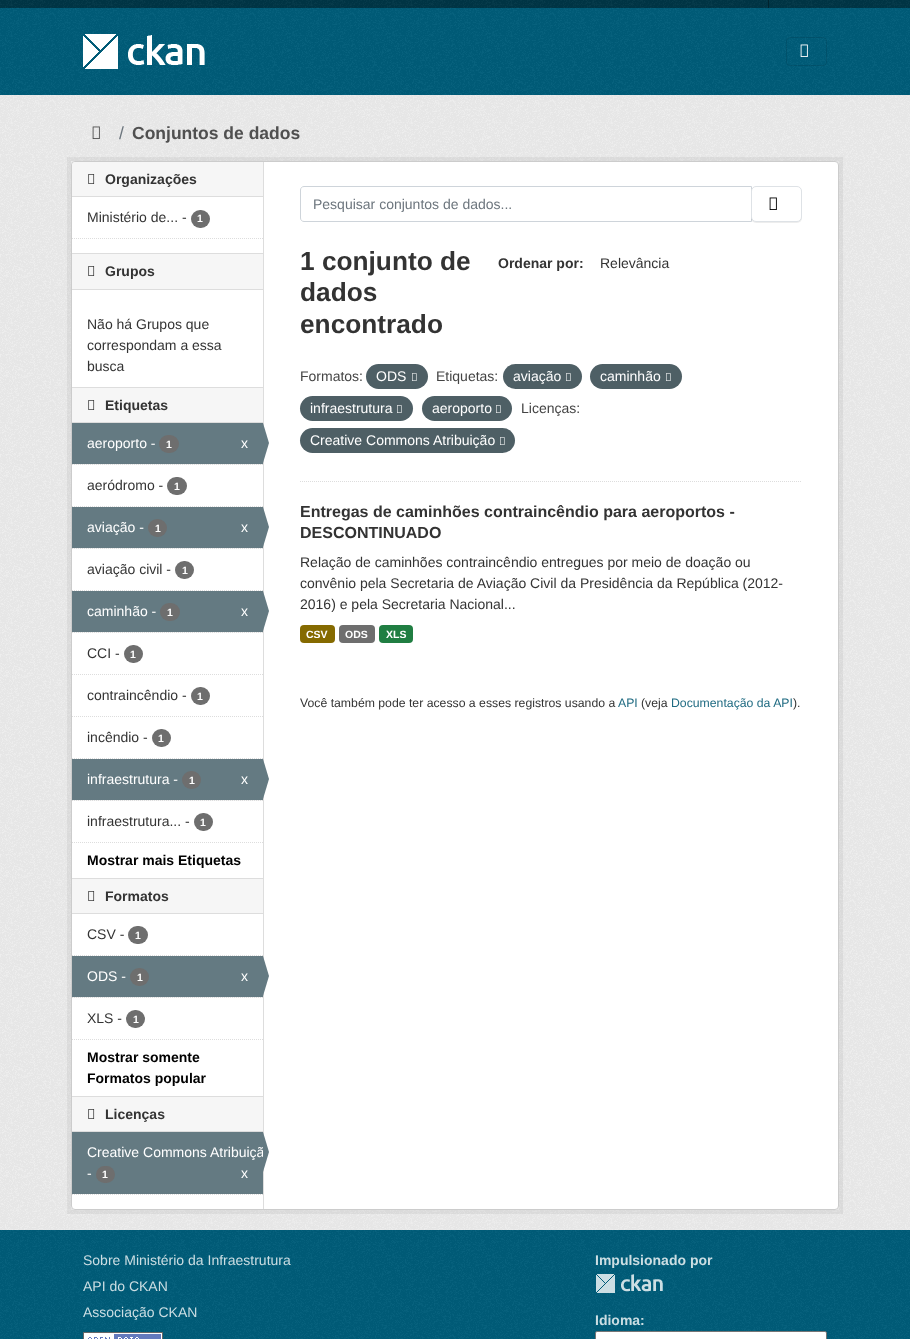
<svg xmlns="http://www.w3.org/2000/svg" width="910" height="1339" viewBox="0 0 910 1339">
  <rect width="100%" height="100%" fill="#003647"/>
  <image x="0" y="0" width="910" height="8" href="img/1.png"/>
  <path d="M768 0h1v8H768z" fill="#00232e"/>
  <path d="M0 8h910v87H0z" fill="#005d7a"/>
  <image x="0" y="8" width="910" height="87" href="img/2.png"/>
  <image x="83" y="34" width="122" height="35" href="img/3.png"/>
  <rect x="786.5" y="37.5" width="40" height="28" rx="3.5" fill="none" stroke="#0000001a"/>
  <image x="800" y="44" width="8" height="13" href="img/4.png"/>
  <path d="M0 95h910v1135H0z" fill="#eee"/>
  <image x="0" y="95" width="910" height="1135" href="img/5.png"/>
  <image x="92" y="126" width="8" height="13" href="img/6.png"/>
  <path d="M69 159h772v1053H69z" fill="none" stroke="#0000000d" stroke-width="4"/>
  <rect x="71.5" y="161.5" width="767" height="1048" rx="3.5" fill="#fff" stroke="#ccc"/>
  <path d="M263 162h1v1047H263z" fill="#ddd"/>
  <path d="M75 162H263V197H72V165C72 163.5 73.5 162 75 162Z" fill="#f6f6f6"/>
  <path d="M72 196h191v1H72z" fill="#ddd"/>
  <image x="88" y="174" width="7" height="10" href="img/7.png"/>
  <rect x="191" y="210" width="19" height="18" rx="9" fill="#6e6e6e"/>
  <path d="M72 238.5H263" fill="none" stroke="#ddd" stroke-dasharray="1 1"/>
  <path d="M72 254h191v35H72z" fill="#f6f6f6"/>
  <path d="M72 253h191v1H72z" fill="#ddd"/>
  <path d="M72 289h191v1H72z" fill="#ddd"/>
  <image x="88" y="266" width="7" height="10" href="img/7.png"/>
  <path d="M72 388h191v34H72z" fill="#f6f6f6"/>
  <path d="M72 387h191v1H72z" fill="#ddd"/>
  <path d="M72 422h191v1H72z" fill="#ddd"/>
  <image x="88" y="400" width="7" height="10" href="img/7.png"/>
  <path d="M73 464h189v1H73z" fill="#f6f6f6"/>
  <path d="M72 464.5H263" fill="none" stroke="#ddd" stroke-dasharray="1 1"/>
  <path d="M72 423h191v41H72z" fill="#647a82"/>
  <rect x="159" y="435" width="20" height="18" rx="9" fill="#6e6e6e"/>
  <path d="M263 463V423L269 443Z" fill="#647a82"/>
  <path d="M72 506.5H263" fill="none" stroke="#ddd" stroke-dasharray="1 1"/>
  <rect x="167" y="477" width="20" height="18" rx="9" fill="#6e6e6e"/>
  <path d="M73 548h189v1H73z" fill="#f6f6f6"/>
  <path d="M72 548.5H263" fill="none" stroke="#ddd" stroke-dasharray="1 1"/>
  <path d="M72 507h191v41H72z" fill="#647a82"/>
  <rect x="148" y="519" width="19" height="18" rx="9" fill="#6e6e6e"/>
  <path d="M263 547V507L269 527Z" fill="#647a82"/>
  <path d="M72 590.5H263" fill="none" stroke="#ddd" stroke-dasharray="1 1"/>
  <rect x="175" y="561" width="19" height="18" rx="9" fill="#6e6e6e"/>
  <path d="M73 632h189v1H73z" fill="#f6f6f6"/>
  <path d="M72 632.5H263" fill="none" stroke="#ddd" stroke-dasharray="1 1"/>
  <path d="M72 591h191v41H72z" fill="#647a82"/>
  <rect x="160" y="603" width="20" height="18" rx="9" fill="#6e6e6e"/>
  <path d="M263 631V591L269 611Z" fill="#647a82"/>
  <path d="M72 674.5H263" fill="none" stroke="#ddd" stroke-dasharray="1 1"/>
  <rect x="124" y="645" width="19" height="18" rx="9" fill="#6e6e6e"/>
  <path d="M72 716.5H263" fill="none" stroke="#ddd" stroke-dasharray="1 1"/>
  <rect x="191" y="687" width="19" height="18" rx="9" fill="#6e6e6e"/>
  <path d="M72 758.5H263" fill="none" stroke="#ddd" stroke-dasharray="1 1"/>
  <rect x="152" y="729" width="19" height="18" rx="9" fill="#6e6e6e"/>
  <path d="M73 800h189v1H73z" fill="#f6f6f6"/>
  <path d="M72 800.5H263" fill="none" stroke="#ddd" stroke-dasharray="1 1"/>
  <path d="M72 759h191v41H72z" fill="#647a82"/>
  <rect x="182" y="771" width="19" height="18" rx="9" fill="#6e6e6e"/>
  <path d="M263 799V759L269 779Z" fill="#647a82"/>
  <rect x="194" y="813" width="19" height="18" rx="9" fill="#6e6e6e"/>
  <path d="M72 842.5H263" fill="none" stroke="#ddd" stroke-dasharray="1 1"/>
  <path d="M72 879h191v34H72z" fill="#f6f6f6"/>
  <path d="M72 878h191v1H72z" fill="#ddd"/>
  <path d="M72 913h191v1H72z" fill="#ddd"/>
  <image x="88" y="891" width="7" height="10" href="img/7.png"/>
  <path d="M72 955.5H263" fill="none" stroke="#ddd" stroke-dasharray="1 1"/>
  <rect x="128" y="926" width="20" height="18" rx="9" fill="#6e6e6e"/>
  <path d="M73 997h189v1H73z" fill="#f6f6f6"/>
  <path d="M72 997.5H263" fill="none" stroke="#ddd" stroke-dasharray="1 1"/>
  <path d="M72 956h191v41H72z" fill="#647a82"/>
  <rect x="130" y="968" width="19" height="18" rx="9" fill="#6e6e6e"/>
  <path d="M263 996V956L269 976Z" fill="#647a82"/>
  <rect x="126" y="1010" width="19" height="18" rx="9" fill="#6e6e6e"/>
  <path d="M72 1039.5H263" fill="none" stroke="#ddd" stroke-dasharray="1 1"/>
  <path d="M72 1097h191v34H72z" fill="#f6f6f6"/>
  <path d="M72 1096h191v1H72z" fill="#ddd"/>
  <path d="M72 1131h191v1H72z" fill="#ddd"/>
  <image x="88" y="1109" width="7" height="10" href="img/7.png"/>
  <path d="M72 1132h191v62H72z" fill="#647a82"/>
  <rect x="96" y="1166" width="19" height="17" rx="8.5" fill="#6e6e6e"/>
  <path d="M72 1194.5H263" fill="none" stroke="#ddd" stroke-dasharray="1 1"/>
  <path d="M300 481.5H802" fill="none" stroke="#ddd" stroke-dasharray="1 1"/>
  <path d="M304 186.5H751.5V221.5H304C302 221.5 300.5 220 300.5 218V190C300.5 188 302 186.5 304 186.5Z" fill="none" stroke="#ced4da"/>
  <rect x="751" y="187" width="51" height="36" rx="5" fill="#00000012" filter="blur(0.5px)"/>
  <rect x="751.5" y="186.5" width="50" height="35" rx="4.5" fill="#fff" stroke="#dee2e6"/>
  <image x="769" y="197" width="8" height="13" href="img/8.png"/>
  <rect x="366" y="364" width="62" height="25" rx="12.5" fill="#4e5f65"/>
  <image x="412" y="373" width="5" height="8" href="img/9.png"/>
  <rect x="503" y="364" width="79" height="25" rx="12.5" fill="#4e5f65"/>
  <image x="566" y="373" width="5" height="8" href="img/9.png"/>
  <rect x="590" y="364" width="92" height="25" rx="12.5" fill="#4e5f65"/>
  <image x="666" y="373" width="5" height="8" href="img/9.png"/>
  <rect x="300" y="396" width="113" height="25" rx="12.5" fill="#4e5f65"/>
  <image x="397" y="405" width="5" height="8" href="img/9.png"/>
  <rect x="422" y="396" width="90" height="25" rx="12.5" fill="#4e5f65"/>
  <image x="496" y="405" width="5" height="8" href="img/9.png"/>
  <rect x="300" y="428" width="215" height="25" rx="12.5" fill="#4e5f65"/>
  <image x="500" y="437" width="5" height="8" href="img/9.png"/>
  <rect x="300" y="625" width="35" height="18" rx="4" fill="#856a00"/>
  <rect x="339" y="625" width="36" height="18" rx="4" fill="#6e6e6e"/>
  <rect x="379" y="625" width="34" height="18" rx="4" fill="#207e42"/>
  <path d="M0 1230h910v109H0z" fill="#005d7a"/>
  <image x="0" y="1230" width="910" height="109" href="img/10.png"/>
  <image x="83" y="1332" width="80" height="7" href="img/11.png"/>
  <image x="596" y="1274" width="67" height="19" href="img/12.png"/>
  <rect x="595.5" y="1331.5" width="231" height="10" rx="1.5" fill="#fff" stroke="#767676"/>
  <text x="119" y="139" font-family="Liberation Sans" font-size="17.5" fill="#6c757d">/</text>
  <text x="132" y="139" font-family="Liberation Sans" font-size="17.5" font-weight="bold" fill="#505050">Conjuntos de dados</text>
  <text x="105" y="184" font-family="Liberation Sans" font-size="14" font-weight="bold" fill="#333">Organizações</text>
  <text x="87" y="222" font-family="Liberation Sans" font-size="14" fill="#333">Ministério de... -</text>
  <text x="197" y="222" font-family="Liberation Sans" font-size="10.5" font-weight="bold" fill="#fff">1</text>
  <text x="105" y="276" font-family="Liberation Sans" font-size="14" font-weight="bold" fill="#333">Grupos</text>
  <g font-family="Liberation Sans" font-size="14" fill="#333">
    <text x="87" y="329">Não há Grupos que</text>
    <text x="87" y="350">correspondam a essa</text>
    <text x="87" y="371">busca</text>
  </g>
  <text x="105" y="410" font-family="Liberation Sans" font-size="14" font-weight="bold" fill="#333">Etiquetas</text>
  <text x="87" y="448" font-family="Liberation Sans" font-size="14" fill="#fff">aeroporto -</text>
  <text x="166" y="448" font-family="Liberation Sans" font-size="10.5" font-weight="bold" fill="#fff">1</text>
  <text x="241" y="448" font-family="Liberation Sans" font-size="14" fill="#fff">x</text>
  <text x="87" y="490" font-family="Liberation Sans" font-size="14" fill="#333">aeródromo -</text>
  <text x="174" y="490" font-family="Liberation Sans" font-size="10.5" font-weight="bold" fill="#fff">1</text>
  <text x="87" y="532" font-family="Liberation Sans" font-size="14" fill="#fff">aviação -</text>
  <text x="155" y="532" font-family="Liberation Sans" font-size="10.5" font-weight="bold" fill="#fff">1</text>
  <text x="241" y="532" font-family="Liberation Sans" font-size="14" fill="#fff">x</text>
  <text x="87" y="574" font-family="Liberation Sans" font-size="14" fill="#333">aviação civil -</text>
  <text x="182" y="574" font-family="Liberation Sans" font-size="10.5" font-weight="bold" fill="#fff">1</text>
  <text x="87" y="616" font-family="Liberation Sans" font-size="14" fill="#fff">caminhão -</text>
  <text x="167" y="616" font-family="Liberation Sans" font-size="10.5" font-weight="bold" fill="#fff">1</text>
  <text x="241" y="616" font-family="Liberation Sans" font-size="14" fill="#fff">x</text>
  <text x="87" y="658" font-family="Liberation Sans" font-size="14" fill="#333">CCI -</text>
  <text x="130" y="658" font-family="Liberation Sans" font-size="10.5" font-weight="bold" fill="#fff">1</text>
  <text x="87" y="700" font-family="Liberation Sans" font-size="14" fill="#333">contraincêndio -</text>
  <text x="197" y="700" font-family="Liberation Sans" font-size="10.5" font-weight="bold" fill="#fff">1</text>
  <text x="87" y="742" font-family="Liberation Sans" font-size="14" fill="#333">incêndio -</text>
  <text x="158" y="742" font-family="Liberation Sans" font-size="10.5" font-weight="bold" fill="#fff">1</text>
  <text x="87" y="784" font-family="Liberation Sans" font-size="14" fill="#fff">infraestrutura -</text>
  <text x="189" y="784" font-family="Liberation Sans" font-size="10.5" font-weight="bold" fill="#fff">1</text>
  <text x="241" y="784" font-family="Liberation Sans" font-size="14" fill="#fff">x</text>
  <text x="87" y="826" font-family="Liberation Sans" font-size="14" fill="#333">infraestrutura... -</text>
  <text x="200" y="826" font-family="Liberation Sans" font-size="10.5" font-weight="bold" fill="#fff">1</text>
  <text x="87" y="865" font-family="Liberation Sans" font-size="14" font-weight="bold" fill="#000">Mostrar mais Etiquetas</text>
  <text x="105" y="901" font-family="Liberation Sans" font-size="14" font-weight="bold" fill="#333">Formatos</text>
  <text x="87" y="939" font-family="Liberation Sans" font-size="14" fill="#333">CSV -</text>
  <text x="135" y="939" font-family="Liberation Sans" font-size="10.5" font-weight="bold" fill="#fff">1</text>
  <text x="87" y="981" font-family="Liberation Sans" font-size="14" fill="#fff">ODS -</text>
  <text x="137" y="981" font-family="Liberation Sans" font-size="10.5" font-weight="bold" fill="#fff">1</text>
  <text x="241" y="981" font-family="Liberation Sans" font-size="14" fill="#fff">x</text>
  <text x="87" y="1023" font-family="Liberation Sans" font-size="14" fill="#333">XLS -</text>
  <text x="133" y="1023" font-family="Liberation Sans" font-size="10.5" font-weight="bold" fill="#fff">1</text>
  <g font-family="Liberation Sans" font-size="14" font-weight="bold" fill="#000">
    <text x="87" y="1062">Mostrar somente</text>
    <text x="87" y="1083">Formatos popular</text>
  </g>
  <text x="105" y="1119" font-family="Liberation Sans" font-size="14" font-weight="bold" fill="#333">Licenças</text>
  <text x="87" y="1157" font-family="Liberation Sans" font-size="14" fill="#fff">Creative Commons Atribuiçã</text>
  <path d="M263 1172V1132L269 1152Z" fill="#647a82"/>
  <text x="87" y="1178" font-family="Liberation Sans" font-size="14" fill="#fff">-</text>
  <text x="102" y="1178" font-family="Liberation Sans" font-size="10.5" font-weight="bold" fill="#fff">1</text>
  <text x="241" y="1178" font-family="Liberation Sans" font-size="14" fill="#fff">x</text>
  <text x="313" y="209" font-family="Liberation Sans" font-size="14" fill="#6c757d">Pesquisar conjuntos de dados...</text>
  <g font-family="Liberation Sans" font-size="26.25" font-weight="bold" fill="#333">
    <text x="300" y="270">1 conjunto de</text>
    <text x="300" y="301">dados</text>
    <text x="300" y="333">encontrado</text>
  </g>
  <text x="498" y="268" font-family="Liberation Sans" font-size="14" font-weight="bold" fill="#333">Ordenar por:</text>
  <text x="600" y="268" font-family="Liberation Sans" font-size="14" fill="#333">Relevância</text>
  <text x="300" y="381" font-family="Liberation Sans" font-size="14" fill="#444">Formatos:</text>
  <text x="376" y="381" font-family="Liberation Sans" font-size="14" fill="#fff">ODS</text>
  <text x="436" y="381" font-family="Liberation Sans" font-size="14" fill="#444">Etiquetas:</text>
  <g font-family="Liberation Sans" font-size="14" fill="#fff">
    <text x="513" y="381">aviação</text>
    <text x="600" y="381">caminhão</text>
    <text x="310" y="413">infraestrutura</text>
    <text x="432" y="413">aeroporto</text>
  </g>
  <text x="521" y="413" font-family="Liberation Sans" font-size="14" fill="#444">Licenças:</text>
  <text x="310" y="445" font-family="Liberation Sans" font-size="14" fill="#fff">Creative Commons Atribuição</text>
  <g font-family="Liberation Sans" font-size="16" font-weight="bold" fill="#333">
    <text x="300" y="517">Entregas de caminhões contraincêndio para aeroportos -</text>
    <text x="300" y="538">DESCONTINUADO</text>
  </g>
  <g font-family="Liberation Sans" font-size="14" fill="#333">
    <text x="300" y="567">Relação de caminhões contraincêndio entregues por meio de doação ou</text>
    <text x="300" y="588">convênio pela Secretaria de Aviação Civil da Presidência da República (2012-</text>
    <text x="300" y="609">2016) e pela Secretaria Nacional...</text>
  </g>
  <g font-family="Liberation Sans" font-size="10.5" font-weight="bold" fill="#fff">
    <text x="306" y="638">CSV</text>
    <text x="345" y="638">ODS</text>
    <text x="386" y="638">XLS</text>
  </g>
  <text x="300" y="707" font-family="Liberation Sans" font-size="12.25" fill="#333">Você também pode ter acesso a esses registros usando a</text>
  <text x="618" y="707" font-family="Liberation Sans" font-size="12.25" fill="#206b82">API</text>
  <text x="641" y="707" font-family="Liberation Sans" font-size="12.25" fill="#333">(veja</text>
  <text x="671" y="707" font-family="Liberation Sans" font-size="12.25" fill="#206b82">Documentação da API</text>
  <text x="793" y="707" font-family="Liberation Sans" font-size="12.25" fill="#333">).</text>
  <g font-family="Liberation Sans" font-size="14" fill="#ccdee3">
    <text x="83" y="1265">Sobre Ministério da Infraestrutura</text>
    <text x="83" y="1291">API do CKAN</text>
    <text x="83" y="1317">Associação CKAN</text>
  </g>
  <g font-family="Liberation Sans" font-size="14" font-weight="bold" fill="#ccdee3">
    <text x="595" y="1265">Impulsionado por</text>
    <text x="595" y="1325">Idioma:</text>
  </g>
</svg>
